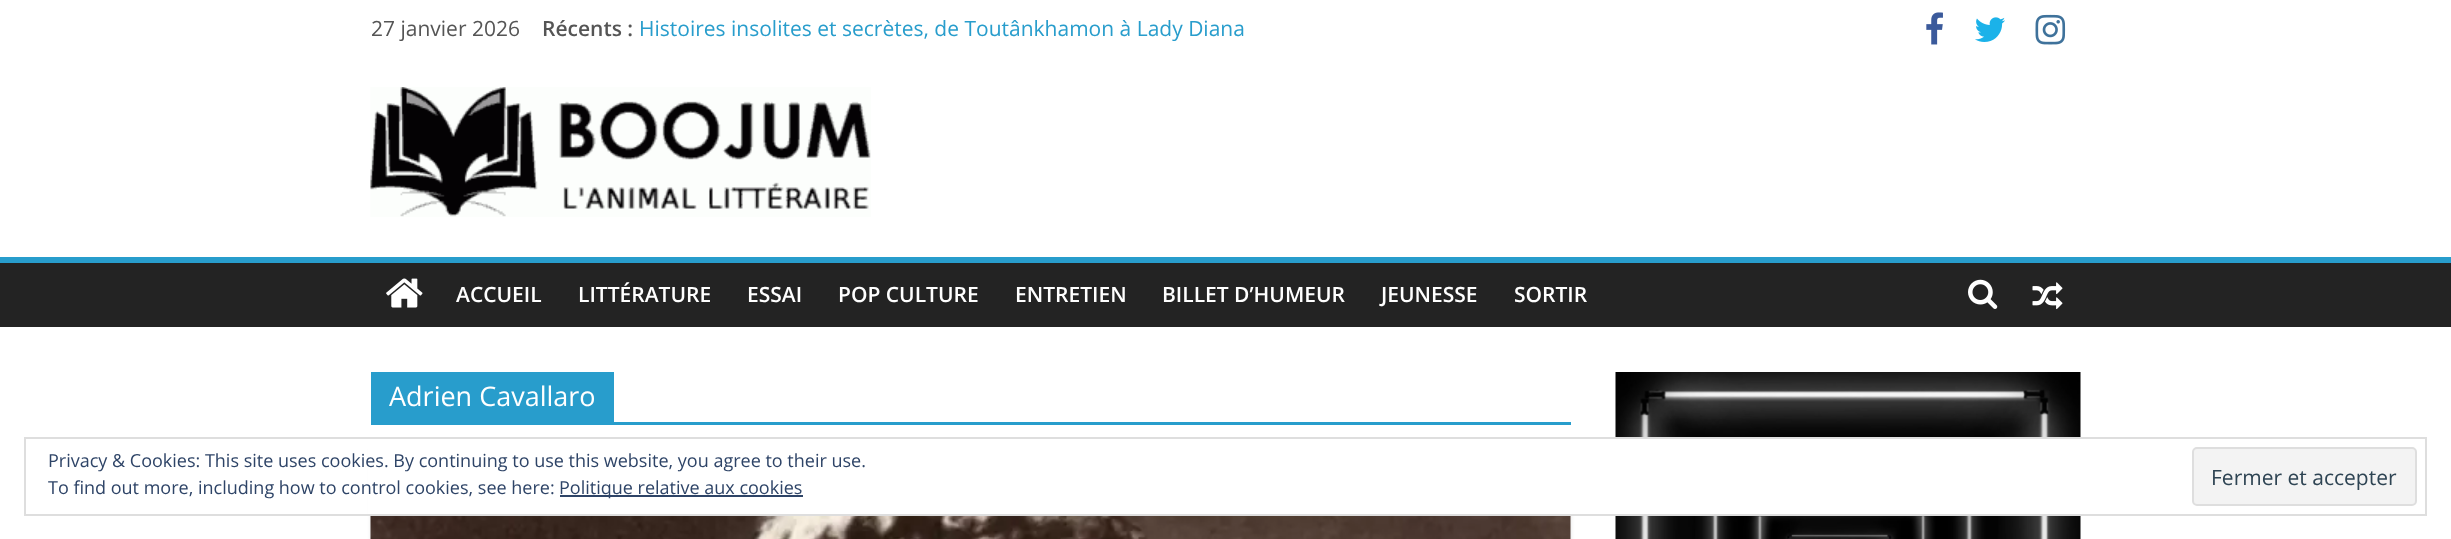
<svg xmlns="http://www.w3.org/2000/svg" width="2451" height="539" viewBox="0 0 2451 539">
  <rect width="100%" height="100%" fill="#fff"/>
  <image x="1926" y="12" width="17" height="33" href="img/1.png"/>
  <image x="1975" y="17" width="30" height="25" href="img/2.png"/>
  <image x="2035" y="14" width="31" height="31" href="img/3.png"/>
  <image x="370" y="87" width="501" height="130" href="img/4.png"/>
  <path d="M0 263h2451v64H0z" fill="#232323"/>
  <path d="M0 257h2451v6H0z" fill="#289dcc"/>
  <image x="386" y="278" width="37" height="30" href="img/5.png"/>
  <image x="1968" y="279" width="30" height="30" href="img/6.png"/>
  <image x="2032" y="282" width="31" height="28" href="img/7.png"/>
  <path d="M371 422h1200v3H371z" fill="#289dcc"/>
  <path d="M371 372h243v50H371z" fill="#289dcc"/>
  <path d="M371 449h1200v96H371z" fill="#0000001a" filter="blur(2px)"/>
  <image x="370" y="516" width="1201" height="23" href="img/8.png"/>
  <image x="1615" y="372" width="466" height="167" href="img/9.png"/>
  <path d="M368 439h1713v75H368z" fill="#fff"/>
  <path d="M25 438h2401v77H25z" fill="none" stroke="#dedede" stroke-width="2"/>
  <path d="M560 495h243v2H560z" fill="#2e4467"/>
  <rect x="2193" y="448" width="223" height="57" rx="4" fill="#f3f3f3" stroke="#dedede" stroke-width="2"/>
  <text x="371" y="36" font-family="Open Sans" font-size="21" fill="#555">27 janvier 2026</text>
  <text x="542" y="36" font-family="Open Sans" font-size="21" font-weight="600" fill="#555">Récents :</text>
  <text x="639" y="36" font-family="Open Sans" font-size="21" fill="#289dcc">Histoires insolites et secrètes, de Toutânkhamon à Lady Diana</text>
  <g font-family="Open Sans" font-size="21" font-weight="600" fill="#fff">
    <text x="456" y="302">ACCUEIL</text>
    <text x="578" y="302">LITTÉRATURE</text>
    <text x="747" y="302">ESSAI</text>
    <text x="838" y="302">POP CULTURE</text>
    <text x="1015" y="302">ENTRETIEN</text>
    <text x="1162" y="302">BILLET D’HUMEUR</text>
    <text x="1381" y="302">JEUNESSE</text>
    <text x="1514" y="302">SORTIR</text>
  </g>
  <text x="389" y="406" font-family="Open Sans" font-size="27" fill="#fff">Adrien Cavallaro</text>
  <g font-family="Open Sans" font-size="18" fill="#2e4467">
    <text x="48" y="467">Privacy &amp; Cookies: This site uses cookies. By continuing to use this website, you agree to their use.</text>
    <text x="48" y="494">To find out more, including how to control cookies, see here:</text>
    <text x="559" y="494">Politique relative aux cookies</text>
  </g>
  <text x="2211" y="485" font-family="Open Sans" font-size="21" fill="#2e4453">Fermer et accepter</text>
</svg>
